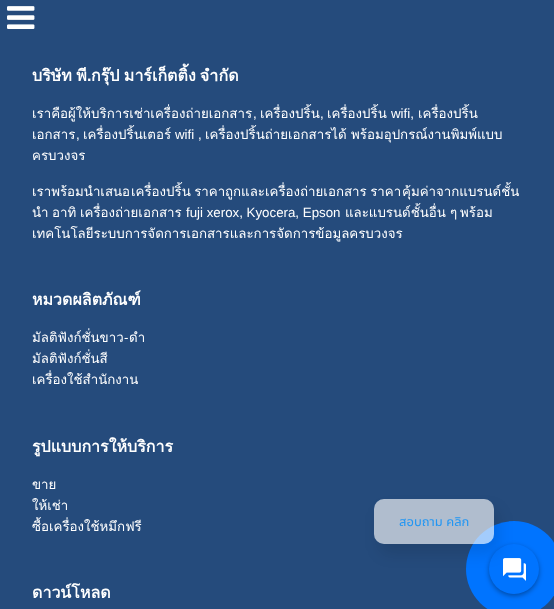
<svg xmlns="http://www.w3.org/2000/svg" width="554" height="609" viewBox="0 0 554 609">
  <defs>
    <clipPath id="clip1"><path d="M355 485H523V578H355ZM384 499H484C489.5 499 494 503.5 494 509V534C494 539.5 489.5 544 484 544H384C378.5 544 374 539.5 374 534V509C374 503.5 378.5 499 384 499Z" clip-rule="evenodd"/></clipPath>
  </defs>
  <rect width="100%" height="100%" fill="#254b7c"/>
  <image x="7" y="6" width="28" height="23" href="img/1.png"/>
  <circle cx="514" cy="569" r="48" fill="#0074ff"/>
  <rect x="374" y="499" width="120" height="45" rx="10" fill="#ffffff4d"/>
  <rect x="489" y="546" width="50" height="50" rx="25" fill="#00000059" filter="blur(2.5px)"/>
  <circle cx="514" cy="569" r="25" fill="#0074ff"/>
  <image x="503" y="558" width="23" height="23" href="img/2.png"/>
  <g clip-path="url(#clip1)">
    <rect x="379" y="509" width="120" height="45" rx="10" fill="#0000001a" filter="blur(7.5px)"/>
  </g>
  <rect x="374" y="499" width="120" height="45" rx="10" fill="#fafafa80"/>
  <text x="32" y="81" word-spacing="-1" font-family="Loma" font-size="16" font-weight="bold" fill="#fff">บริษัท พี</text>
  <text x="87" y="81" font-family="Liberation Sans" font-size="16" font-weight="bold" fill="#fff">.</text>
  <text x="91" y="81" word-spacing="-1" font-family="Loma" font-size="16" font-weight="bold" fill="#fff">กรุ๊ป มาร์เก็ตติ้ง จำกัด</text>
  <text x="32" y="118" font-family="Loma" font-size="13.3" fill="#fff">เราคือผู้ให้บริการเช่าเครื่องถ่ายเอกสาร</text>
  <text x="253" y="118" font-family="Liberation Sans" font-size="13.3" fill="#fff">,</text>
  <text x="260" y="118" font-family="Loma" font-size="13.3" fill="#fff">เครื่องปริ้น</text>
  <text x="320" y="118" font-family="Liberation Sans" font-size="13.3" fill="#fff">,</text>
  <text x="327" y="118" font-family="Loma" font-size="13.3" fill="#fff">เครื่องปริ้น</text>
  <text x="391" y="118" font-family="Liberation Sans" font-size="13.3" fill="#fff">wifi,</text>
  <g font-family="Loma" font-size="13.3" fill="#fff">
    <text x="418" y="118">เครื่องปริ้น</text>
    <text x="32" y="139">เอกสาร</text>
  </g>
  <text x="76" y="139" font-family="Liberation Sans" font-size="13.3" fill="#fff">,</text>
  <text x="83" y="139" font-family="Loma" font-size="13.3" fill="#fff">เครื่องปริ้นเตอร์</text>
  <text x="175" y="139" font-family="Liberation Sans" font-size="13.3" fill="#fff">wifi ,</text>
  <g font-family="Loma" font-size="13.3" fill="#fff">
    <text x="205" y="139">เครื่องปริ้นถ่ายเอกสารได้</text>
    <text x="351" y="139">พร้อมอุปกรณ์งานพิมพ์แบบ</text>
    <text x="32" y="160">ครบวงจร</text>
    <text x="32" y="196">เราพร้อมนำเสนอ</text>
    <text x="131" y="196" word-spacing="-1">เครื่องปริ้น ราคา</text>
    <text x="225" y="196">ถูกและ</text>
    <text x="265" y="196" word-spacing="-1">เครื่องถ่ายเอกสาร ราคา</text>
    <text x="402" y="196">คุ้มค่าจากแบรนด์ชั้น</text>
    <text x="32" y="217" word-spacing="-1">นำ อาทิ</text>
    <text x="80" y="217">เครื่องถ่ายเอกสาร</text>
  </g>
  <text x="186" y="217" font-family="Liberation Sans" font-size="13.3" fill="#fff">fuji xerox, Kyocera, Epson</text>
  <g font-family="Loma" font-size="13.3" fill="#fff">
    <text x="345" y="217">และแบรนด์ชั้นอื่น</text>
    <text x="450" y="217">ๆ</text>
    <text x="460" y="217">พร้อม</text>
    <text x="32" y="238">เทคโนโลยีระบบการจัดการเอกสารและการจัดการข้อมูลครบวงจร</text>
  </g>
  <text x="32" y="305" font-family="Loma" font-size="16" font-weight="bold" fill="#fff">หมวดผลิตภัณฑ์</text>
  <text x="32" y="342" font-family="Loma" font-size="13.3" fill="#fff">มัลติฟังก์ชั่นขาว</text>
  <text x="124" y="342" font-family="Liberation Sans" font-size="13.3" fill="#fff">-</text>
  <g font-family="Loma" font-size="13.3" fill="#fff">
    <text x="129" y="342">ดำ</text>
    <text x="32" y="363">มัลติฟังก์ชั่นสี</text>
    <text x="32" y="384">เครื่องใช้สำนักงาน</text>
  </g>
  <text x="32" y="452" font-family="Loma" font-size="16" font-weight="bold" fill="#fff">รูปแบบการให้บริการ</text>
  <g font-family="Loma" font-size="13.3" fill="#fff">
    <text x="32" y="489">ขาย</text>
    <text x="32" y="510">ให้เช่า</text>
    <text x="32" y="531">ซื้อเครื่องใช้หมึกฟรี</text>
  </g>
  <text x="32" y="598" font-family="Loma" font-size="16" font-weight="bold" fill="#fff">ดาวน์โหลด</text>
  <text x="399" y="526" font-family="Noto Sans Thai UI" font-size="13" fill="#2196f3">สอบถาม คลิก</text>
</svg>
